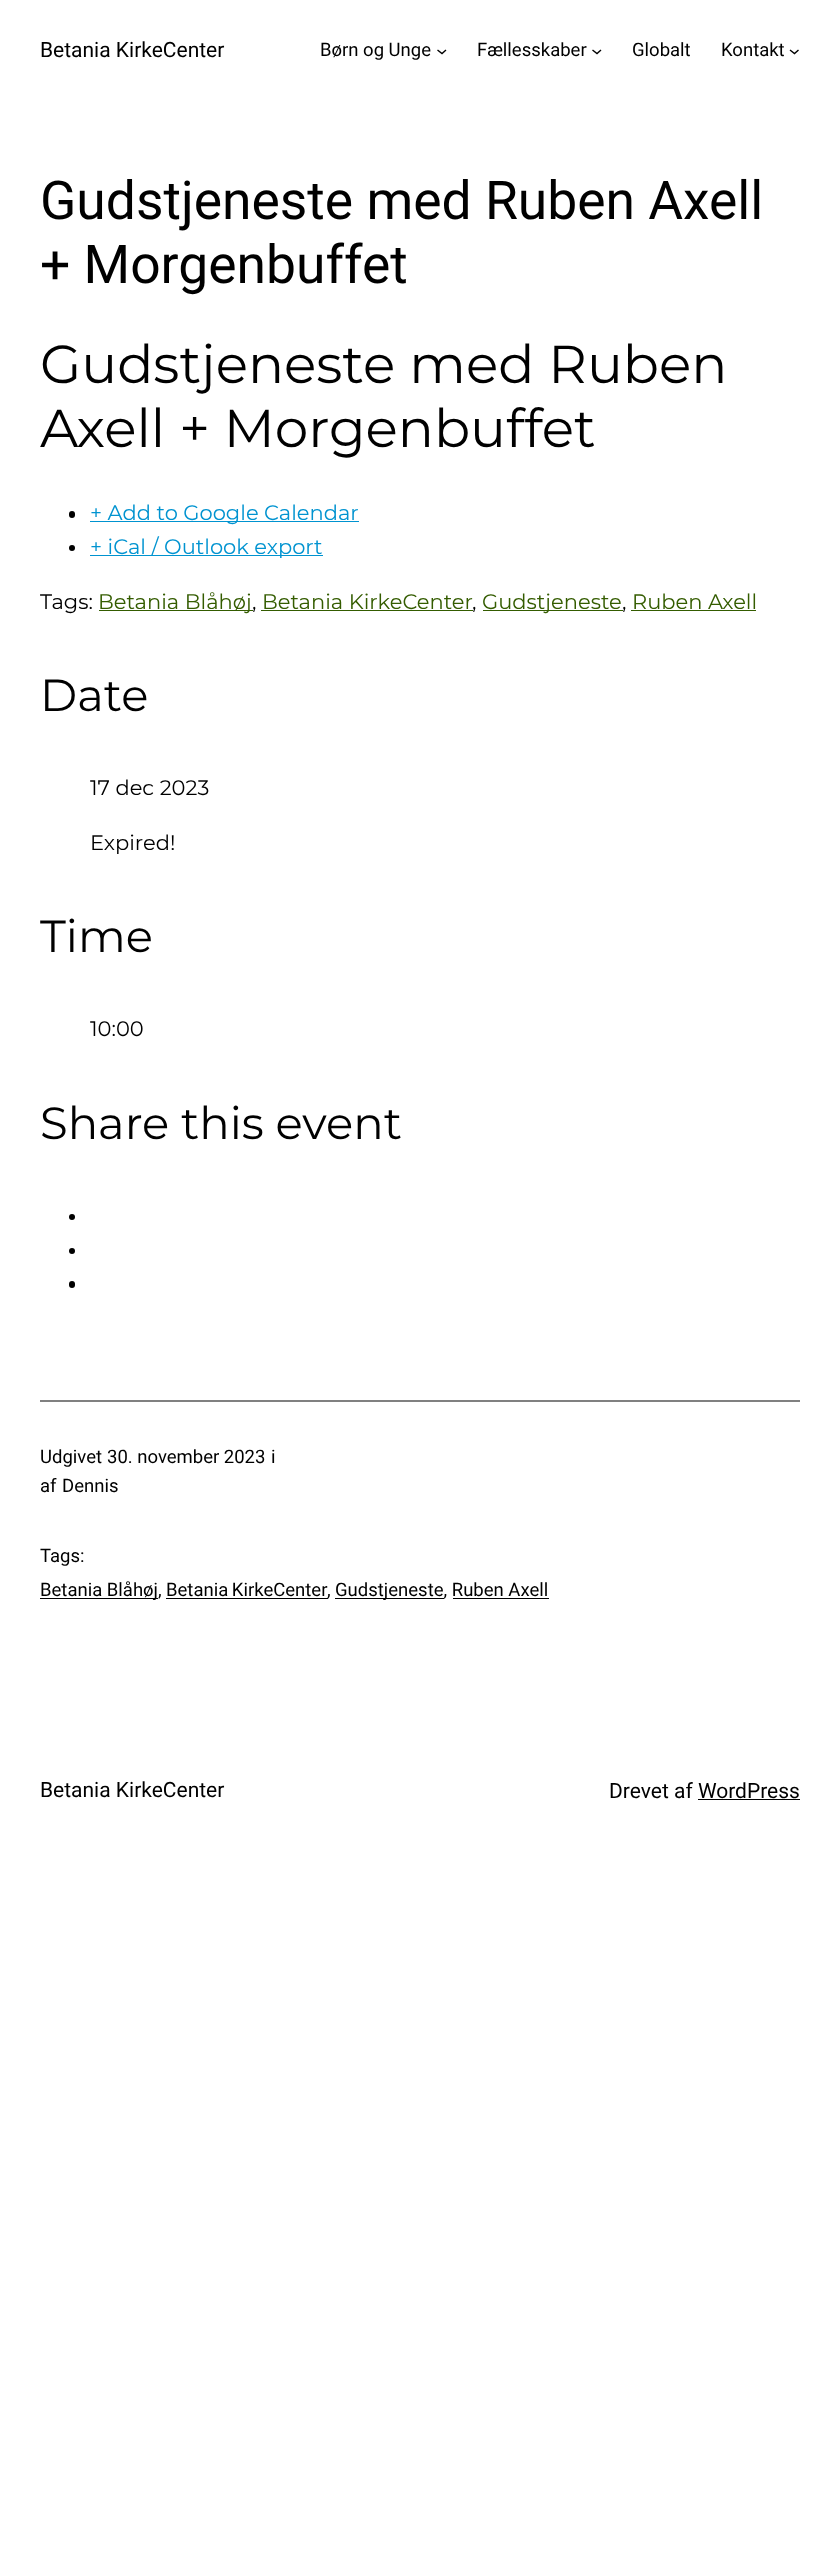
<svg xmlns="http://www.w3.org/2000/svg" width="840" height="2556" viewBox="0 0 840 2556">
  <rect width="100%" height="100%" fill="#fff"/>
  <path d="M437.5 50L442 53.5L446 50" fill="none" stroke="#000" stroke-width="1.4"/>
  <path d="M592.5 50L597 53.5L601 50" fill="none" stroke="#000" stroke-width="1.4"/>
  <path d="M790 50L794.5 53.5L798.5 50" fill="none" stroke="#000" stroke-width="1.4"/>
  <rect x="69" y="511" width="6" height="7" rx="3" fill="#000"/>
  <path d="M90 521h269v1H90z" fill="#0093d0"/>
  <circle cx="72" cy="548" r="3" fill="#000"/>
  <path d="M90 555h233v1H90z" fill="#0093d0"/>
  <path d="M99 610h154v1H99z" fill="#345c00"/>
  <path d="M261 610h212v1H261z" fill="#345c00"/>
  <path d="M483 610h140v1H483z" fill="#345c00"/>
  <path d="M631 610h125v1H631z" fill="#345c00"/>
  <circle cx="72" cy="1217" r="3" fill="#000"/>
  <circle cx="72" cy="1251" r="3" fill="#000"/>
  <rect x="69" y="1281" width="6" height="7" rx="3" fill="#000"/>
  <path d="M40 1400h760v2H40z" fill="#808080"/>
  <path d="M40 1598h118v1H40z" fill="#000"/>
  <path d="M166 1598h162v1H166z" fill="#000"/>
  <path d="M335 1598h109v1H335z" fill="#000"/>
  <path d="M453 1598h96v1H453z" fill="#000"/>
  <path d="M698 1799h102v1H698z" fill="#000"/>
  <text x="40" y="57" font-family="Roboto" font-size="21" fill="#000">Betania KirkeCenter</text>
  <g font-family="Roboto" font-size="18.5" fill="#000">
    <text x="320" y="56">Børn og Unge</text>
    <text x="477" y="56">Fællesskaber</text>
    <text x="632" y="56">Globalt</text>
    <text x="721" y="56">Kontakt</text>
  </g>
  <g font-family="Roboto" font-size="53.4" fill="#000">
    <text x="40" y="219">Gudstjeneste med Ruben Axell</text>
    <text x="40" y="283">+ Morgenbuffet</text>
  </g>
  <g font-family="Montserrat" font-size="53.4" fill="#000">
    <text x="40" y="383">Gudstjeneste med Ruben</text>
    <text x="40" y="447">Axell + Morgenbuffet</text>
  </g>
  <g font-family="Montserrat" font-size="21" fill="#0093d0">
    <text x="90" y="520">+ Add to Google Calendar</text>
    <text x="90" y="554">+ iCal / Outlook export</text>
  </g>
  <text x="40" y="609" font-family="Montserrat" font-size="21" fill="#000">Tags:</text>
  <text x="98" y="609" font-family="Montserrat" font-size="21" fill="#345c00">Betania Blåhøj</text>
  <text x="252" y="609" font-family="Montserrat" font-size="21" fill="#000">,</text>
  <text x="262" y="609" font-family="Montserrat" font-size="21" fill="#345c00">Betania KirkeCenter</text>
  <text x="472" y="609" font-family="Montserrat" font-size="21" fill="#000">,</text>
  <text x="482" y="609" font-family="Montserrat" font-size="21" fill="#345c00">Gudstjeneste</text>
  <text x="622" y="609" font-family="Montserrat" font-size="21" fill="#000">,</text>
  <text x="632" y="609" font-family="Montserrat" font-size="21" fill="#345c00">Ruben Axell</text>
  <text x="40" y="711" font-family="Montserrat" font-size="45" fill="#000">Date</text>
  <g font-family="Montserrat" font-size="21" fill="#000">
    <text x="90" y="795">17 dec 2023</text>
    <text x="90" y="850">Expired!</text>
  </g>
  <text x="40" y="952" font-family="Montserrat" font-size="45" fill="#000">Time</text>
  <text x="90" y="1036" font-family="Montserrat" font-size="21" fill="#000">10:00</text>
  <text x="40" y="1139" font-family="Montserrat" font-size="45" fill="#000">Share this event</text>
  <g font-family="Roboto" font-size="18.5" fill="#000">
    <text x="40" y="1463">Udgivet</text>
    <text x="107" y="1463">30. november 2023</text>
    <text x="271" y="1463">i</text>
    <text x="40" y="1492">af</text>
    <text x="62" y="1492">Dennis</text>
    <text x="40" y="1562">Tags:</text>
    <text x="40" y="1596">Betania Blåhøj,</text>
    <text x="166" y="1596" word-spacing="-1">Betania KirkeCenter</text>
    <text x="327" y="1596">,</text>
    <text x="335" y="1596">Gudstjeneste, Ruben Axell</text>
  </g>
  <g font-family="Roboto" font-size="21" fill="#000">
    <text x="40" y="1797">Betania KirkeCenter</text>
    <text x="609" y="1798">Drevet af WordPress</text>
  </g>
</svg>
